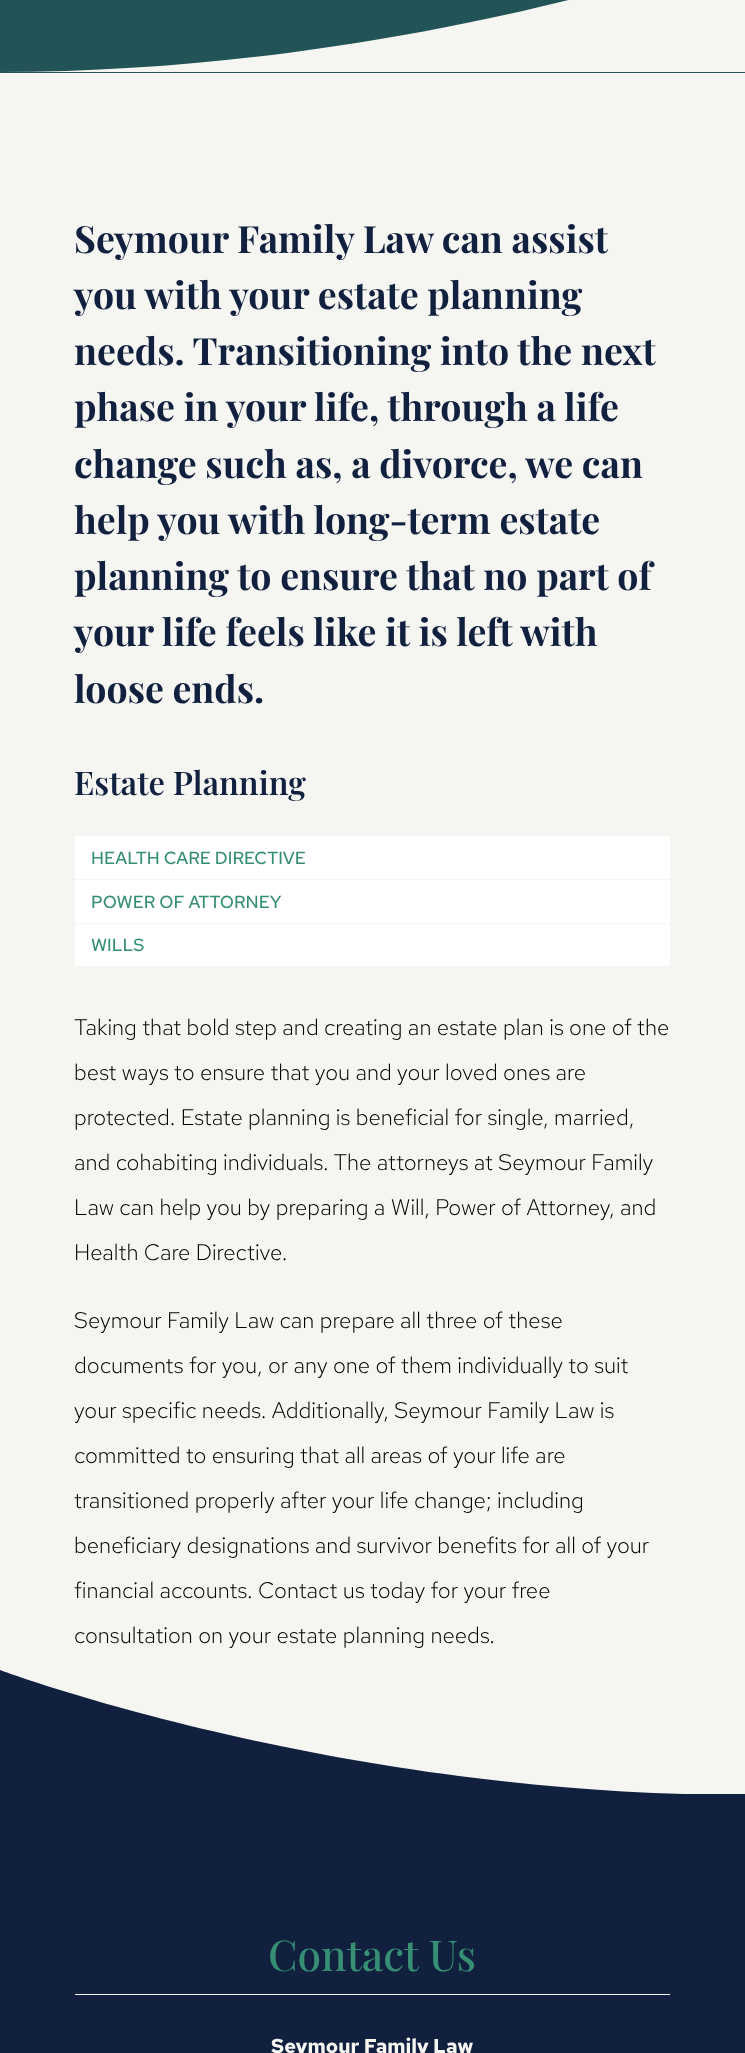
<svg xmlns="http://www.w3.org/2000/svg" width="745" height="2053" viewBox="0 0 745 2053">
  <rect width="100%" height="100%" fill="#f5f5f1"/>
  <path d="M0 0h745v73H0z" fill="#225457"/>
  <path d="M745 72H0C411 72 745-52 745-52Z" fill="#f5f5f1"/>
  <path d="M75 836h595v43H75z" fill="#fff"/>
  <path d="M75 880h595v43H75z" fill="#fff"/>
  <path d="M75 924h595v42H75z" fill="#fff"/>
  <path d="M0 1794h745v259H0z" fill="#11203e"/>
  <path d="M0 1795H745C334 1795 0 1670 0 1670Z" fill="#11203e"/>
  <path d="M75 1994h595v1H75z" fill="#f5f5f1"/>
  <g font-family="Playfair Display" font-size="37.5" font-weight="bold" fill="#11203e">
    <text x="74" y="253">Seymour Family Law can assist</text>
    <text x="74" y="309">you with your estate planning</text>
    <text x="74" y="365">needs. Transitioning into the next</text>
    <text x="74" y="421">phase in your life, through a life</text>
    <text x="74" y="478">change such as, a divorce, we can</text>
    <text x="74" y="534">help you with long-term estate</text>
    <text x="74" y="590">planning to ensure that no part of</text>
    <text x="74" y="646">your life feels like it is left with</text>
    <text x="74" y="703">loose ends.</text>
  </g>
  <text x="74" y="795" font-family="Playfair Display" font-size="32.5" font-weight="600" fill="#11203e">Estate Planning</text>
  <g font-family="Red Hat Text" font-size="17.5" font-weight="500" fill="#368e73">
    <text x="91" y="864">HEALTH CARE DIRECTIVE</text>
    <text x="91" y="908">POWER OF ATTORNEY</text>
    <text x="91" y="951">WILLS</text>
  </g>
  <g font-family="Red Hat Text" font-size="22.5" font-weight="300" fill="#000">
    <text x="74" y="1035">Taking that bold step and creating an estate plan is one of the</text>
    <text x="74" y="1080">best ways to ensure that you and your loved ones are</text>
    <text x="74" y="1125">protected. Estate planning is beneficial for single, married,</text>
    <text x="74" y="1170">and cohabiting individuals. The attorneys at Seymour Family</text>
    <text x="74" y="1215">Law can help you by preparing a Will, Power of Attorney, and</text>
    <text x="74" y="1260">Health Care Directive.</text>
    <text x="74" y="1328">Seymour Family Law can prepare all three of these</text>
    <text x="74" y="1373">documents for you, or any one of them individually to suit</text>
    <text x="74" y="1418">your specific needs. Additionally, Seymour Family Law is</text>
    <text x="74" y="1463">committed to ensuring that all areas of your life are</text>
    <text x="74" y="1508">transitioned properly after your life change; including</text>
    <text x="74" y="1553">beneficiary designations and survivor benefits for all of your</text>
    <text x="74" y="1598">financial accounts. Contact us today for your free</text>
    <text x="74" y="1643">consultation on your estate planning needs.</text>
  </g>
  <text x="268" y="1971" font-family="Playfair Display" font-size="42.5" font-weight="500" fill="#368e73">Contact Us</text>
  <text x="271" y="2053" font-family="Red Hat Text" font-size="20" font-weight="bold" fill="#f5f5f1">Seymour Family Law</text>
</svg>
